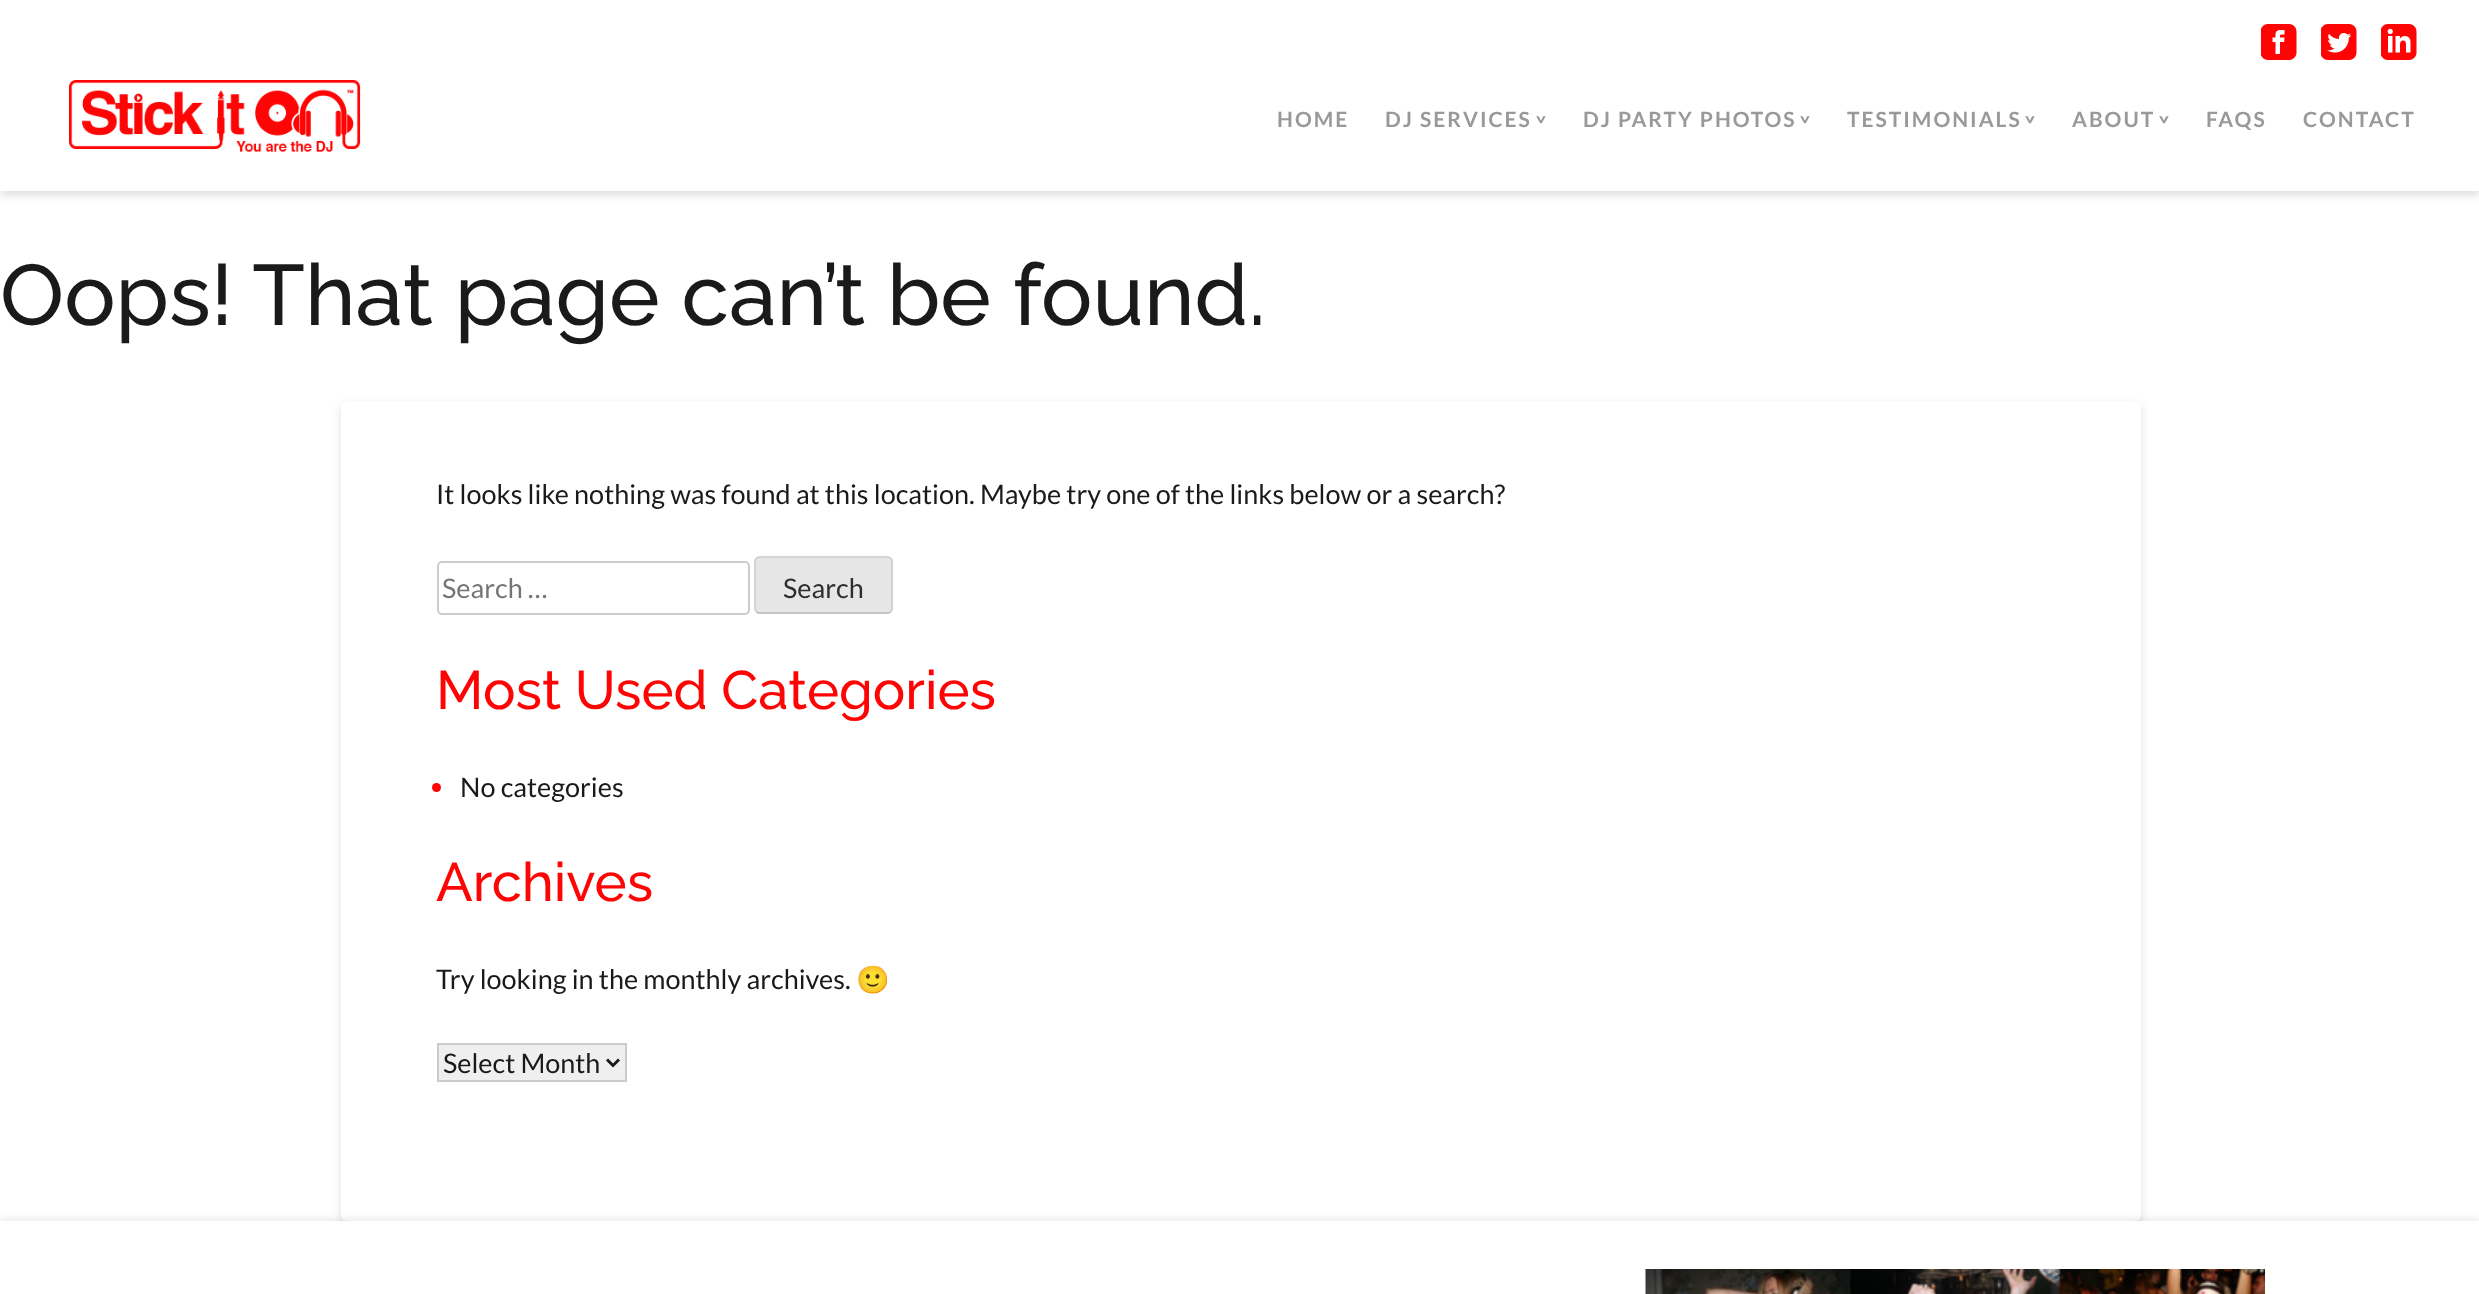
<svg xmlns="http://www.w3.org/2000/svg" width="2479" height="1294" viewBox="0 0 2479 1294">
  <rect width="100%" height="100%" fill="#fff"/>
  <path d="M0 5h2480v190H0z" fill="#00000021" filter="blur(4.5px)"/>
  <path d="M0 0h2479v191H0z" fill="#fff"/>
  <image x="2261" y="24" width="36" height="36" href="img/1.png"/>
  <image x="2321" y="24" width="36" height="36" href="img/2.png"/>
  <image x="2381" y="24" width="36" height="36" href="img/3.png"/>
  <image x="69" y="80" width="292" height="72" href="img/4.png"/>
  <rect x="341" y="405" width="1800" height="821" rx="6" fill="#00000021" filter="blur(4.5px)"/>
  <rect x="341" y="401" width="1800" height="820" rx="6" fill="#fff"/>
  <rect x="438" y="562" width="311" height="52" rx="4" fill="none" stroke="#ccc" stroke-width="2"/>
  <rect x="755" y="557" width="138" height="57" rx="5" fill="#e6e6e6"/>
  <path d="M890.5 611.5C890 612.5 889 613 888 613H759C758 613 757 612.5 756.5 611.5" fill="none" stroke="#bbb" stroke-width="1.5"/>
  <path d="M756.5 611.5C755.5 611 755 610 755 609V561C755 560 755.5 559 756.5 558.5C757 557.5 758 557 759 557H888C889 557 890 557.5 890.5 558.5C891.5 559 892 560 892 561V609C892 610 891.5 611 890.5 611.5" fill="none" stroke="#ccc" stroke-width="1.5"/>
  <circle cx="436.5" cy="787.5" r="4.5" fill="#ff0404"/>
  <path d="M438 1044h188v37H438z" fill="#efefef" stroke="#ccc" stroke-width="2"/>
  <path d="M607 1059.5L613 1065.5L619 1059.5" fill="none" stroke="#1a1a1a" stroke-width="3"/>
  <path d="M0 1218h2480v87H0z" fill="#00000012" filter="blur(3.5px)"/>
  <path d="M0 1221h2479v73H0z" fill="#fff"/>
  <image x="1645" y="1269" width="620" height="25" href="img/5.png"/>
  <g font-family="Lato" font-size="21" font-weight="bold" letter-spacing="2" fill="#999">
    <text x="1277" y="127">HOME</text>
    <text x="1385" y="127">DJ SERVICES</text>
    <text x="1547" y="108" transform="rotate(180 1547 108)">^</text>
    <text x="1583" y="127">DJ PARTY PHOTOS</text>
    <text x="1811" y="108" transform="rotate(180 1811 108)">^</text>
    <text x="1847" y="127">TESTIMONIALS</text>
    <text x="2036" y="108" transform="rotate(180 2036 108)">^</text>
    <text x="2072" y="127">ABOUT</text>
    <text x="2170" y="108" transform="rotate(180 2170 108)">^</text>
    <text x="2206" y="127">FAQS</text>
    <text x="2303" y="127">CONTACT</text>
  </g>
  <text x="0" y="325" font-family="Raleway" font-size="85.75" font-weight="500" fill="#1a1a1a">Oops! That page can’t be found.</text>
  <text x="436" y="504" font-family="Lato" font-size="27" fill="#1a1a1a">It looks like nothing was found at this location. Maybe try one of the links below or a search?</text>
  <text x="442" y="598" font-family="Lato" font-size="27" fill="#757575">Search …</text>
  <text x="783" y="598" font-family="Lato" font-size="27" fill="#2e2e2e">Search</text>
  <text x="436" y="709" font-family="Raleway" font-size="54.25" font-weight="500" fill="#ff0404">Most Used Categories</text>
  <text x="460" y="797" font-family="Lato" font-size="27" fill="#1a1a1a">No categories</text>
  <text x="436" y="901" font-family="Raleway" font-size="54.25" font-weight="500" fill="#ff0404">Archives</text>
  <text x="436" y="989" font-family="Lato" font-size="27" fill="#1a1a1a">Try looking in the monthly archives.</text>
  <text x="856" y="989" font-family="Noto Color Emoji" font-size="27" fill="#1a1a1a">🙂</text>
  <text x="443" y="1073" font-family="Lato" font-size="27" fill="#1a1a1a">Select Month</text>
</svg>
